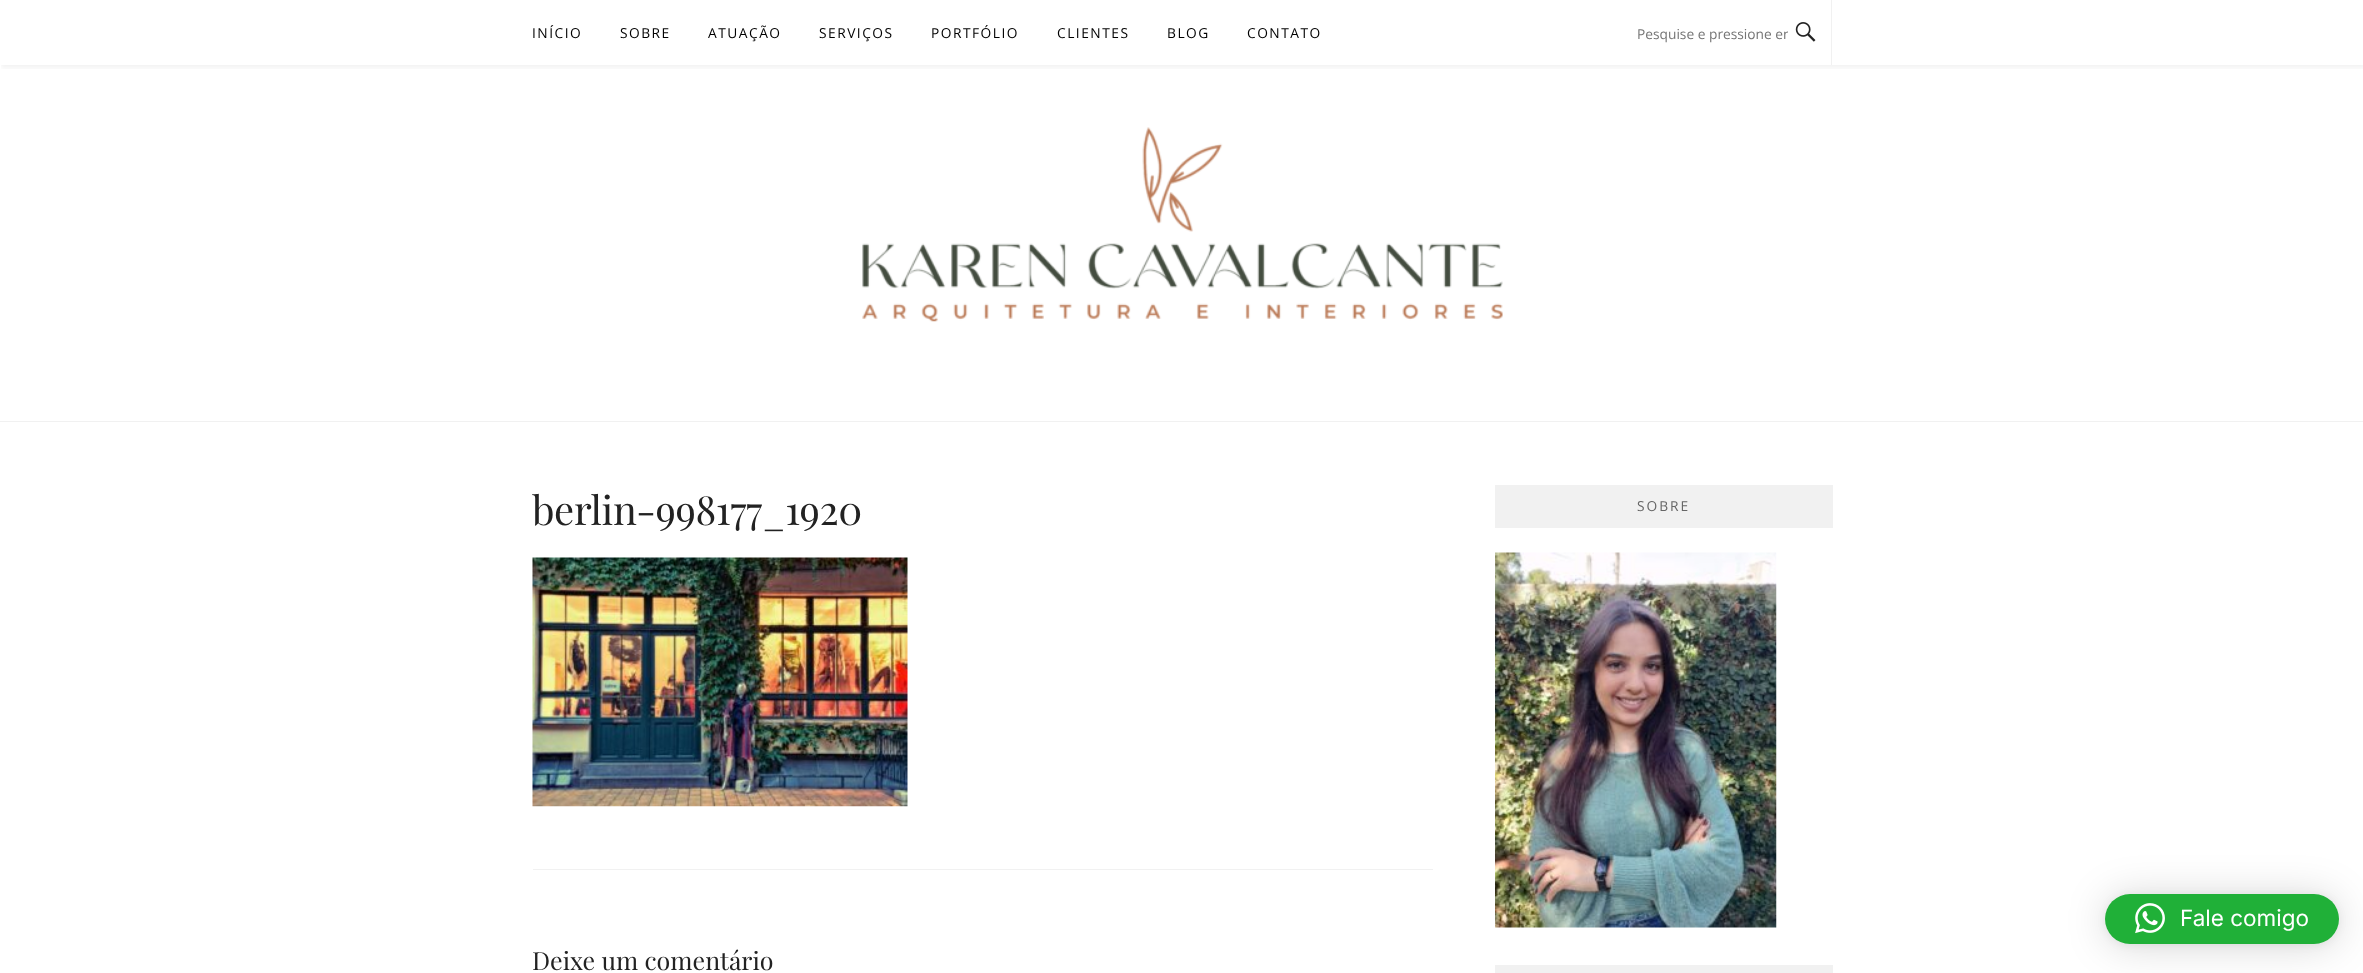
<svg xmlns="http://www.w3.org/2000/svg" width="2363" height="973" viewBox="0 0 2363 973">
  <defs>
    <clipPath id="clip1"><path d="M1 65h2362v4H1z"/></clipPath>
    <clipPath id="clip2"><path d="M1638 24h150v19H1638z"/></clipPath>
  </defs>
  <rect width="100%" height="100%" fill="#fff"/>
  <g clip-path="url(#clip1)">
    <path d="M1 3h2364v65H1z" fill="#0000000d" filter="blur(2.5px)"/>
  </g>
  <path d="M1831 0h1v65H1831z" fill="#f1f1f1"/>
  <image x="1795" y="22" width="21" height="20" href="img/1.png"/>
  <image x="862" y="127" width="641" height="195" href="img/2.png"/>
  <path d="M0 421h2363v1H0z" fill="#f1f1f1"/>
  <image x="532" y="557" width="376" height="250" href="img/3.png"/>
  <path d="M533 869h900v1H533z" fill="#f1f1f1"/>
  <path d="M1495 485h338v43H1495z" fill="#f1f1f1"/>
  <image x="1495" y="552" width="282" height="376" href="img/4.png"/>
  <path d="M1495 965h338v8H1495z" fill="#f1f1f1"/>
  <rect x="2105" y="896" width="234" height="50" rx="25" fill="#00000029" filter="blur(20px)"/>
  <rect x="2105" y="895" width="234" height="50" rx="25" fill="#0000000f" filter="blur(4px)"/>
  <rect x="2105" y="894" width="234" height="50" rx="25" fill="#20b038"/>
  <image x="2135" y="903" width="30" height="31" href="img/5.png"/>
  <g font-family="Open Sans" font-size="13.75" letter-spacing="1.5" fill="#000">
    <text x="532" y="38">INÍCIO</text>
    <text x="620" y="38">SOBRE</text>
    <text x="708" y="38">ATUAÇÃO</text>
    <text x="819" y="38">SERVIÇOS</text>
    <text x="931" y="38">PORTFÓLIO</text>
    <text x="1057" y="38">CLIENTES</text>
    <text x="1167" y="38">BLOG</text>
    <text x="1247" y="38">CONTATO</text>
  </g>
  <g clip-path="url(#clip2)">
    <text x="1637" y="39" font-family="Open Sans" font-size="13.75" fill="#757575">Pesquise e pressione en</text>
  </g>
  <text x="532" y="525" font-family="Playfair Display" font-size="40" letter-spacing="-0.4" fill="#222">berlin-998177_1920</text>
  <text x="532" y="970" font-family="Playfair Display" font-size="25" fill="#222">Deixe um comentário</text>
  <text x="1637" y="511" font-family="Open Sans" font-size="13.75" letter-spacing="2" fill="#666">SOBRE</text>
  <text x="2180" y="926" font-family="Inter" font-size="22.5" fill="#fff">Fale comigo</text>
</svg>
